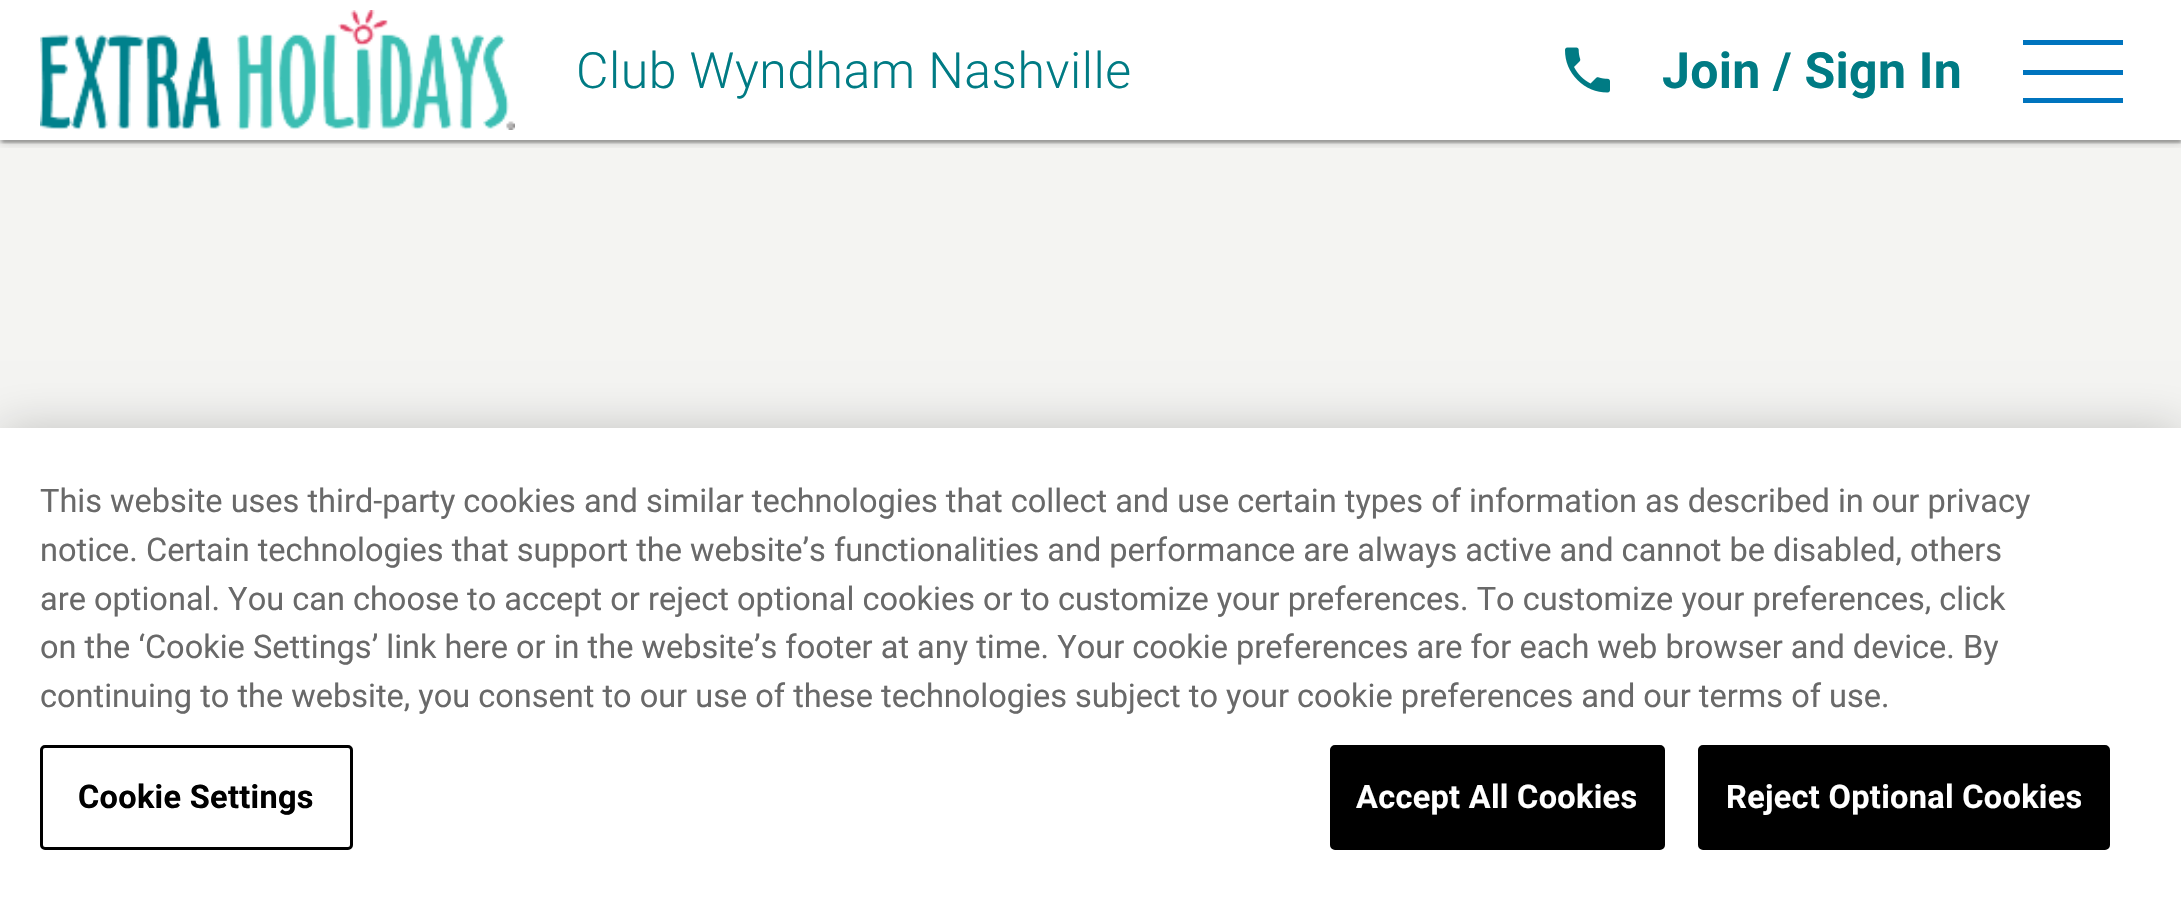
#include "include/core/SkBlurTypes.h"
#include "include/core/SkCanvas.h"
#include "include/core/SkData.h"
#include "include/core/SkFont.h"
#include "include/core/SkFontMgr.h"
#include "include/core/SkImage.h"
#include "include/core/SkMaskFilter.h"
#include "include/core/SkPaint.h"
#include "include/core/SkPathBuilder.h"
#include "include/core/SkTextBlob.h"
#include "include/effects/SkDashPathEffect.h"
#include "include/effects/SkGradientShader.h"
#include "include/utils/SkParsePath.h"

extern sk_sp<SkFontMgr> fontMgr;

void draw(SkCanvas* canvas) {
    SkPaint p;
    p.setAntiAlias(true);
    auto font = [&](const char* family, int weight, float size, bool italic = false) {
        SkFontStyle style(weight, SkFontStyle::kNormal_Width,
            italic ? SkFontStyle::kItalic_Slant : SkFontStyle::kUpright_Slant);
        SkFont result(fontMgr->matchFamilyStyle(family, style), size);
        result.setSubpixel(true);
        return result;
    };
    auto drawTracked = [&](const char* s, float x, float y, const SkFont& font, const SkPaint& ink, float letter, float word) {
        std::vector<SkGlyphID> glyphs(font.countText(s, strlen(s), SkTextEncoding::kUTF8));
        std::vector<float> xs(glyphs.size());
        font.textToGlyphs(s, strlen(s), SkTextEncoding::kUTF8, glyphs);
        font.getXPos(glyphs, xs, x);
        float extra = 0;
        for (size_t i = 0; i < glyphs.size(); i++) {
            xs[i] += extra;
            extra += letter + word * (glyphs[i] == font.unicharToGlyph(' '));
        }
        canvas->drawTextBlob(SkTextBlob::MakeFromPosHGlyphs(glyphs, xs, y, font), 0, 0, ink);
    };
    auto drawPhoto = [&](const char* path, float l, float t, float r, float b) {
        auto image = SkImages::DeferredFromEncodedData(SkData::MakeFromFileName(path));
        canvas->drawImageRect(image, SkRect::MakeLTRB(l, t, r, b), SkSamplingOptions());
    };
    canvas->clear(0xFFFFFFFF);
    p.setColor(0xFFF4F4F2);
    canvas->drawRect(SkRect::MakeLTRB(0, 140, 2181, 428), p);
    canvas->save();
    canvas->clipRect(SkRect::MakeLTRB(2, 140, 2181, 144));
    p.setColor(0x1F000000);
    p.setMaskFilter(SkMaskFilter::MakeBlur(kNormal_SkBlurStyle, 1));
    canvas->drawRect(SkRect::MakeLTRB(3, 8, 2180, 143), p);
    p.setMaskFilter(nullptr);
    canvas->restore();
    canvas->save();
    canvas->clipRect(SkRect::MakeLTRB(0, 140, 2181, 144));
    p.setColor(0x24000000);
    p.setMaskFilter(SkMaskFilter::MakeBlur(kNormal_SkBlurStyle, 1));
    canvas->drawRect(SkRect::MakeLTRB(0, 3, 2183, 143), p);
    p.setMaskFilter(nullptr);
    canvas->restore();
    canvas->save();
    canvas->clipRect(SkRect::MakeLTRB(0, 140, 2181, 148));
    p.setColor(0x33000000);
    p.setMaskFilter(SkMaskFilter::MakeBlur(kNormal_SkBlurStyle, 4));
    canvas->drawRect(SkRect::MakeLTRB(0, 3, 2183, 143), p);
    p.setMaskFilter(nullptr);
    canvas->restore();
    drawPhoto("media/1.png", 40, 10, 515, 130);
    auto font1 = font("Roboto", 300, 50);
    p.setColor(0xFF007B84);
    drawTracked("Club Wyndham Nashville", 576, 88, font1, p, 0.5f, 0);
    drawPhoto("media/2.png", 1565, 47, 1610, 93);
    auto font2 = font("Roboto", 700, 50);
    drawTracked("Join / Sign In", 1662, 88, font2, p, 0.25f, 0);
    {
        const struct { float l, t, r, b; SkColor color; } items[] = {
            {2023, 40, 2123, 45, 0xFF0074BE},
            {2023, 70, 2123, 75, 0xFF0074BE},
            {2023, 98, 2123, 103, 0xFF0074BE},
        };
        for (auto [l, t, r, b, color] : items) {
            p.setColor(color);
            canvas->drawRect(SkRect::MakeLTRB(l, t, r, b), p);
        }
    }
    p.setColor(0x33000000);
    p.setMaskFilter(SkMaskFilter::MakeBlur(kNormal_SkBlurStyle, 22.5f));
    canvas->drawRect(SkRect::MakeLTRB(0, 428, 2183, 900), p);
    p.setMaskFilter(nullptr);
    p.setColor(0xFFFFFFFF);
    canvas->drawRect(SkRect::MakeLTRB(0, 428, 2181, 898), p);
    auto font3 = font("Roboto", 400, 32.52f);
    p.setColor(0xFF696969);
    {
        const struct { const char* s; float x, y; } items[] = {
            {"This website uses third-party cookies and similar technologies that collect and use certain types of information as described in our privacy", 40, 512},
            {"notice. Certain technologies that support the website’s functionalities and performance are always active and cannot be disabled, others", 40, 561},
            {"are optional. You can choose to accept or reject optional cookies or to customize your preferences. To customize your preferences, click", 40, 610},
            {"on the ‘Cookie Settings’ link here or in the website’s footer at any time. Your cookie preferences are for each web browser and device. By", 40, 658},
            {"continuing to the website, you consent to our use of these technologies subject to your cookie preferences and our terms of use.", 40, 707},
        };
        for (auto [s, x, y] : items) {
            canvas->drawString(s, x, y, font3, p);
        }
    }
    p.setStyle(SkPaint::kStroke_Style);
    p.setStrokeWidth(3);
    p.setColor(0xFF000000);
    canvas->drawRoundRect(SkRect::MakeLTRB(41.5f, 746.5f, 351.5f, 848.5f), 3.5f, 3.5f, p);
    auto font4 = font("Roboto", 700, 32.52f);
    p.setStyle(SkPaint::kFill_Style);
    drawTracked("Cookie Settings", 78, 808, font4, p, 0.3f, 0);
    canvas->drawRoundRect(SkRect::MakeLTRB(1331.5f, 746.5f, 1663.5f, 848.5f), 3.5f, 3.5f, p);
    p.setStyle(SkPaint::kStroke_Style);
    canvas->drawRoundRect(SkRect::MakeLTRB(1331.5f, 746.5f, 1663.5f, 848.5f), 3.5f, 3.5f, p);
    p.setStyle(SkPaint::kFill_Style);
    p.setColor(0xFFFFFFFF);
    drawTracked("Accept All Cookies", 1356, 808, font4, p, 0.3f, 0);
    p.setColor(0xFF000000);
    canvas->drawRoundRect(SkRect::MakeLTRB(1699.5f, 746.5f, 2108.5f, 848.5f), 3.5f, 3.5f, p);
    p.setStyle(SkPaint::kStroke_Style);
    canvas->drawRoundRect(SkRect::MakeLTRB(1699.5f, 746.5f, 2108.5f, 848.5f), 3.5f, 3.5f, p);
    p.setStyle(SkPaint::kFill_Style);
    p.setColor(0xFFFFFFFF);
    drawTracked("Reject Optional Cookies", 1726, 808, font4, p, 0.3f, 0);
}
